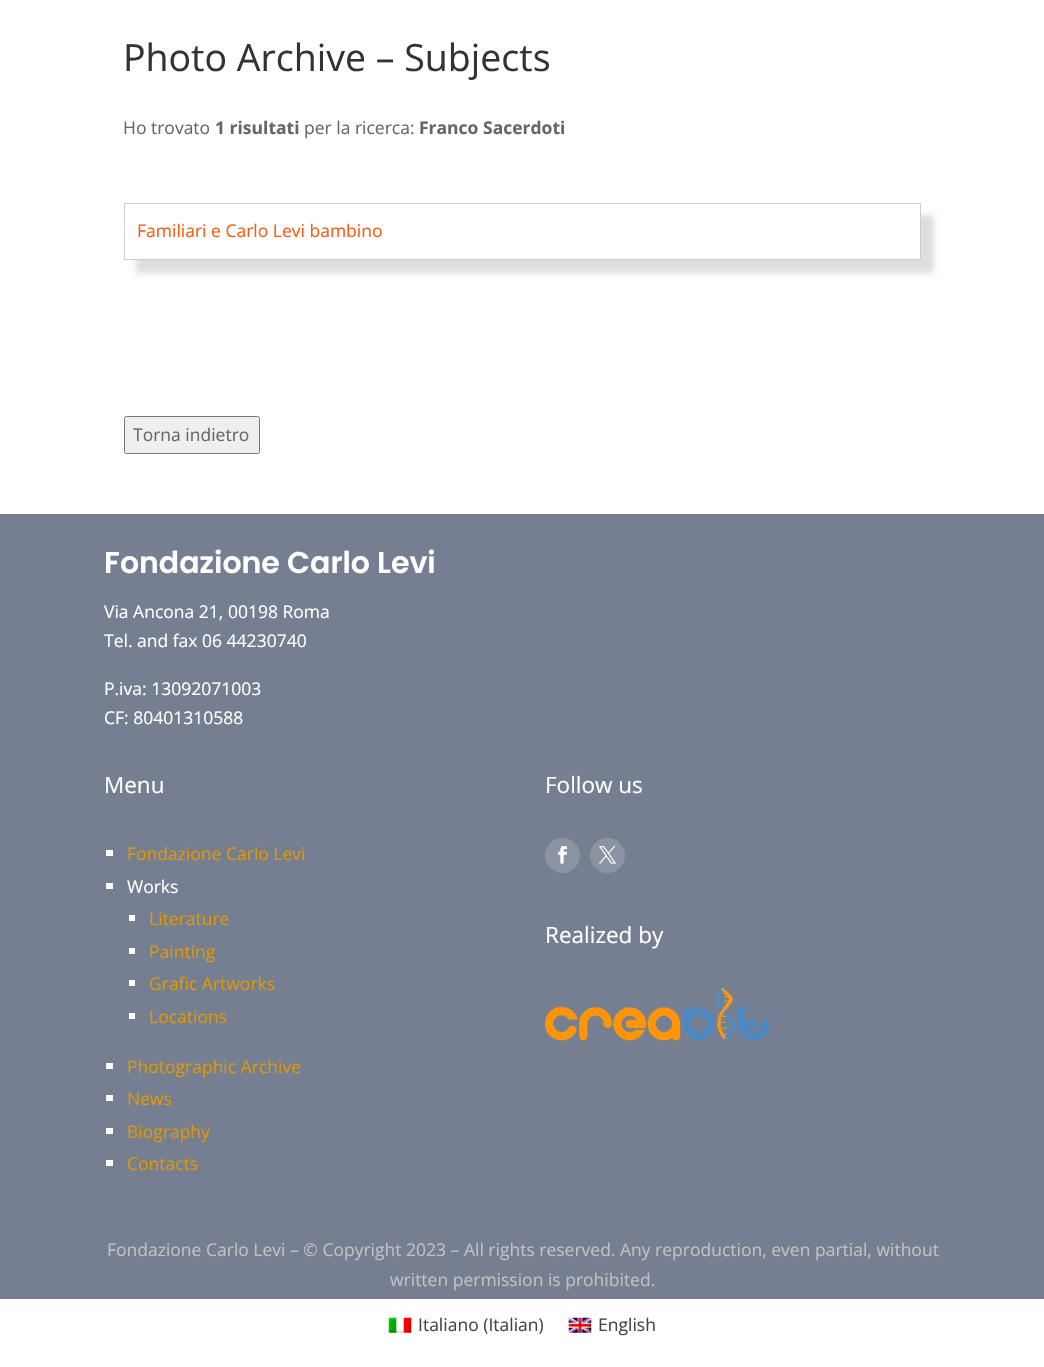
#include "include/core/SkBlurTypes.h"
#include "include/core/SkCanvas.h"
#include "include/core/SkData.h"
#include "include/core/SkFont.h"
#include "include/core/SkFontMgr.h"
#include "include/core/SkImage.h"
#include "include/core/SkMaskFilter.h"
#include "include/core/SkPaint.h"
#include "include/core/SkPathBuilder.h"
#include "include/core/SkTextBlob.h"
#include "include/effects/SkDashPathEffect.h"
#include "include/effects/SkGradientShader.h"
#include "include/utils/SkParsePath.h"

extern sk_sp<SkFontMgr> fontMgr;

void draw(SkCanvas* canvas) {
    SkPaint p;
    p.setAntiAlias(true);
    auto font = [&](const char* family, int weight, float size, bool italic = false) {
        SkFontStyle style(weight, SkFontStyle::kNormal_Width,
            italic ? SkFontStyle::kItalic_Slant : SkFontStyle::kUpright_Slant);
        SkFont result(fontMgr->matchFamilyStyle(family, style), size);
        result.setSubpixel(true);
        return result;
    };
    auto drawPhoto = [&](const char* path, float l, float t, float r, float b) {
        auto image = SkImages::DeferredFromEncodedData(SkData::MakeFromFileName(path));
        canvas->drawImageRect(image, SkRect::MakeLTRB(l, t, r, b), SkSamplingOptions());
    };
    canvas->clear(0xFFFFFFFF);
    auto font1 = font("Open Sans", 400, 37.5f);
    p.setColor(0xFF333333);
    canvas->drawString("Photo Archive – Subjects", 123, 71, font1, p);
    auto font2 = font("Open Sans", 400, 17.5f);
    p.setColor(0xFF666666);
    canvas->drawString("Ho trovato", 123, 134, font2, p);
    auto font3 = font("Open Sans", 700, 17.5f);
    canvas->drawString("1 risultati", 215, 134, font3, p);
    canvas->drawString("per la ricerca:", 304, 134, font2, p);
    canvas->drawString("Franco Sacerdoti", 419, 134, font3, p);
    canvas->save();
    canvas->clipPath(SkPathBuilder(SkPathFillType::kEvenOdd).moveTo(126, 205).lineTo(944, 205).lineTo(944, 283).lineTo(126, 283).close().moveTo(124, 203).lineTo(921, 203).lineTo(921, 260).lineTo(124, 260).close().detach(), true);
    p.setColor(0xFFDEDEDE);
    p.setMaskFilter(SkMaskFilter::MakeBlur(kNormal_SkBlurStyle, 3));
    canvas->drawRect(SkRect::MakeLTRB(136, 215, 934, 273), p);
    p.setMaskFilter(nullptr);
    canvas->restore();
    p.setStyle(SkPaint::kStroke_Style);
    p.setStrokeWidth(1);
    p.setColor(0xFFCCCCCC);
    canvas->drawRect(SkRect::MakeLTRB(124.5f, 203.5f, 920.5f, 259.5f), p);
    p.setStyle(SkPaint::kFill_Style);
    p.setColor(0xFFFF5910);
    canvas->drawString("Familiari e Carlo Levi bambino", 137, 237, font2, p);
    p.setColor(0xFFEFEFEF);
    canvas->drawRoundRect(SkRect::MakeLTRB(124.5f, 416.5f, 259.5f, 453.5f), 2, 2, p);
    p.setStyle(SkPaint::kStroke_Style);
    p.setColor(0xFF767676);
    canvas->drawRoundRect(SkRect::MakeLTRB(124.5f, 416.5f, 259.5f, 453.5f), 2, 2, p);
    p.setStyle(SkPaint::kFill_Style);
    p.setColor(0xFF666666);
    canvas->drawString("Torna indietro", 133, 441, font2, p);
    p.setColor(0xFF767F91);
    canvas->drawRect(SkRect::MakeLTRB(0, 514, 1044, 1299), p);
    auto font4 = font("Poppins", 600, 30);
    p.setColor(0xFFFFFFFF);
    canvas->drawString("Fondazione Carlo Levi", 104, 573, font4, p);
    {
        const struct { const char* s; float x, y; } items[] = {
            {"Via Ancona 21, 00198 Roma", 104, 618},
            {"Tel. and fax 06 44230740", 104, 647},
            {"P.iva: 13092071003", 104, 695},
            {"CF: 80401310588", 104, 724},
        };
        for (auto [s, x, y] : items) {
            canvas->drawString(s, x, y, font2, p);
        }
    }
    auto font5 = font("Open Sans", 400, 22.5f);
    canvas->drawString("Menu", 104, 793, font5, p);
    canvas->drawRect(SkRect::MakeLTRB(106, 850, 113, 856), p);
    p.setColor(0xFFE09900);
    canvas->drawString("Fondazione Carlo Levi", 127, 860, font2, p);
    p.setColor(0xFFFFFFFF);
    canvas->drawRect(SkRect::MakeLTRB(106, 883, 113, 889), p);
    canvas->drawString("Works", 127, 893, font2, p);
    canvas->drawRect(SkRect::MakeLTRB(129, 915, 135, 921), p);
    p.setColor(0xFFE09900);
    canvas->drawString("Literature", 149, 925, font2, p);
    p.setColor(0xFFFFFFFF);
    canvas->drawRect(SkRect::MakeLTRB(129, 948, 135, 954), p);
    p.setColor(0xFFE09900);
    canvas->drawString("Painting", 149, 958, font2, p);
    p.setColor(0xFFFFFFFF);
    canvas->drawRect(SkRect::MakeLTRB(129, 980, 135, 986), p);
    p.setColor(0xFFE09900);
    canvas->drawString("Grafic Artworks", 149, 990, font2, p);
    p.setColor(0xFFFFFFFF);
    canvas->drawRect(SkRect::MakeLTRB(129, 1013, 135, 1019), p);
    p.setColor(0xFFE09900);
    canvas->drawString("Locations", 149, 1023, font2, p);
    p.setColor(0xFFFFFFFF);
    canvas->drawRect(SkRect::MakeLTRB(106, 1063, 113, 1069), p);
    p.setColor(0xFFE09900);
    canvas->drawString("Photographic Archive", 127, 1073, font2, p);
    p.setColor(0xFFFFFFFF);
    canvas->drawRect(SkRect::MakeLTRB(106, 1095, 113, 1101), p);
    p.setColor(0xFFE09900);
    canvas->drawString("News", 127, 1105, font2, p);
    p.setColor(0xFFFFFFFF);
    canvas->drawRect(SkRect::MakeLTRB(106, 1128, 113, 1134), p);
    p.setColor(0xFFE09900);
    canvas->drawString("Biography", 127, 1138, font2, p);
    p.setColor(0xFFFFFFFF);
    canvas->drawRect(SkRect::MakeLTRB(106, 1160, 113, 1166), p);
    p.setColor(0xFFE09900);
    canvas->drawString("Contacts", 127, 1170, font2, p);
    p.setColor(0xFFFFFFFF);
    canvas->drawString("Follow us", 545, 793, font5, p);
    p.setColor(0xFF8C93A3);
    canvas->drawCircle(562.5f, 855.5f, 17.5f, p);
    drawPhoto("media/1.png", 558, 846, 567, 864);
    canvas->drawCircle(607.5f, 855.5f, 17.5f, p);
    drawPhoto("media/2.png", 599, 846, 616, 864);
    p.setColor(0xFFFFFFFF);
    canvas->drawString("Realized by", 545, 943, font5, p);
    drawPhoto("media/3.png", 545, 987, 770, 1042);
    p.setColor(0xFFC1C1C1);
    canvas->drawString("Fondazione Carlo Levi – © Copyright 2023 – All rights reserved. Any reproduction, even partial, without", 107, 1256, font2, p);
    canvas->drawString("written permission is prohibited.", 390, 1286, font2, p);
    drawPhoto("media/4.png", 388, 1317, 412, 1333);
    p.setColor(0xFF444444);
    canvas->drawString("Italiano (Italian)", 418, 1331, font2, p);
    drawPhoto("media/5.png", 568, 1317, 592, 1333);
    canvas->drawString("English", 598, 1331, font2, p);
}
